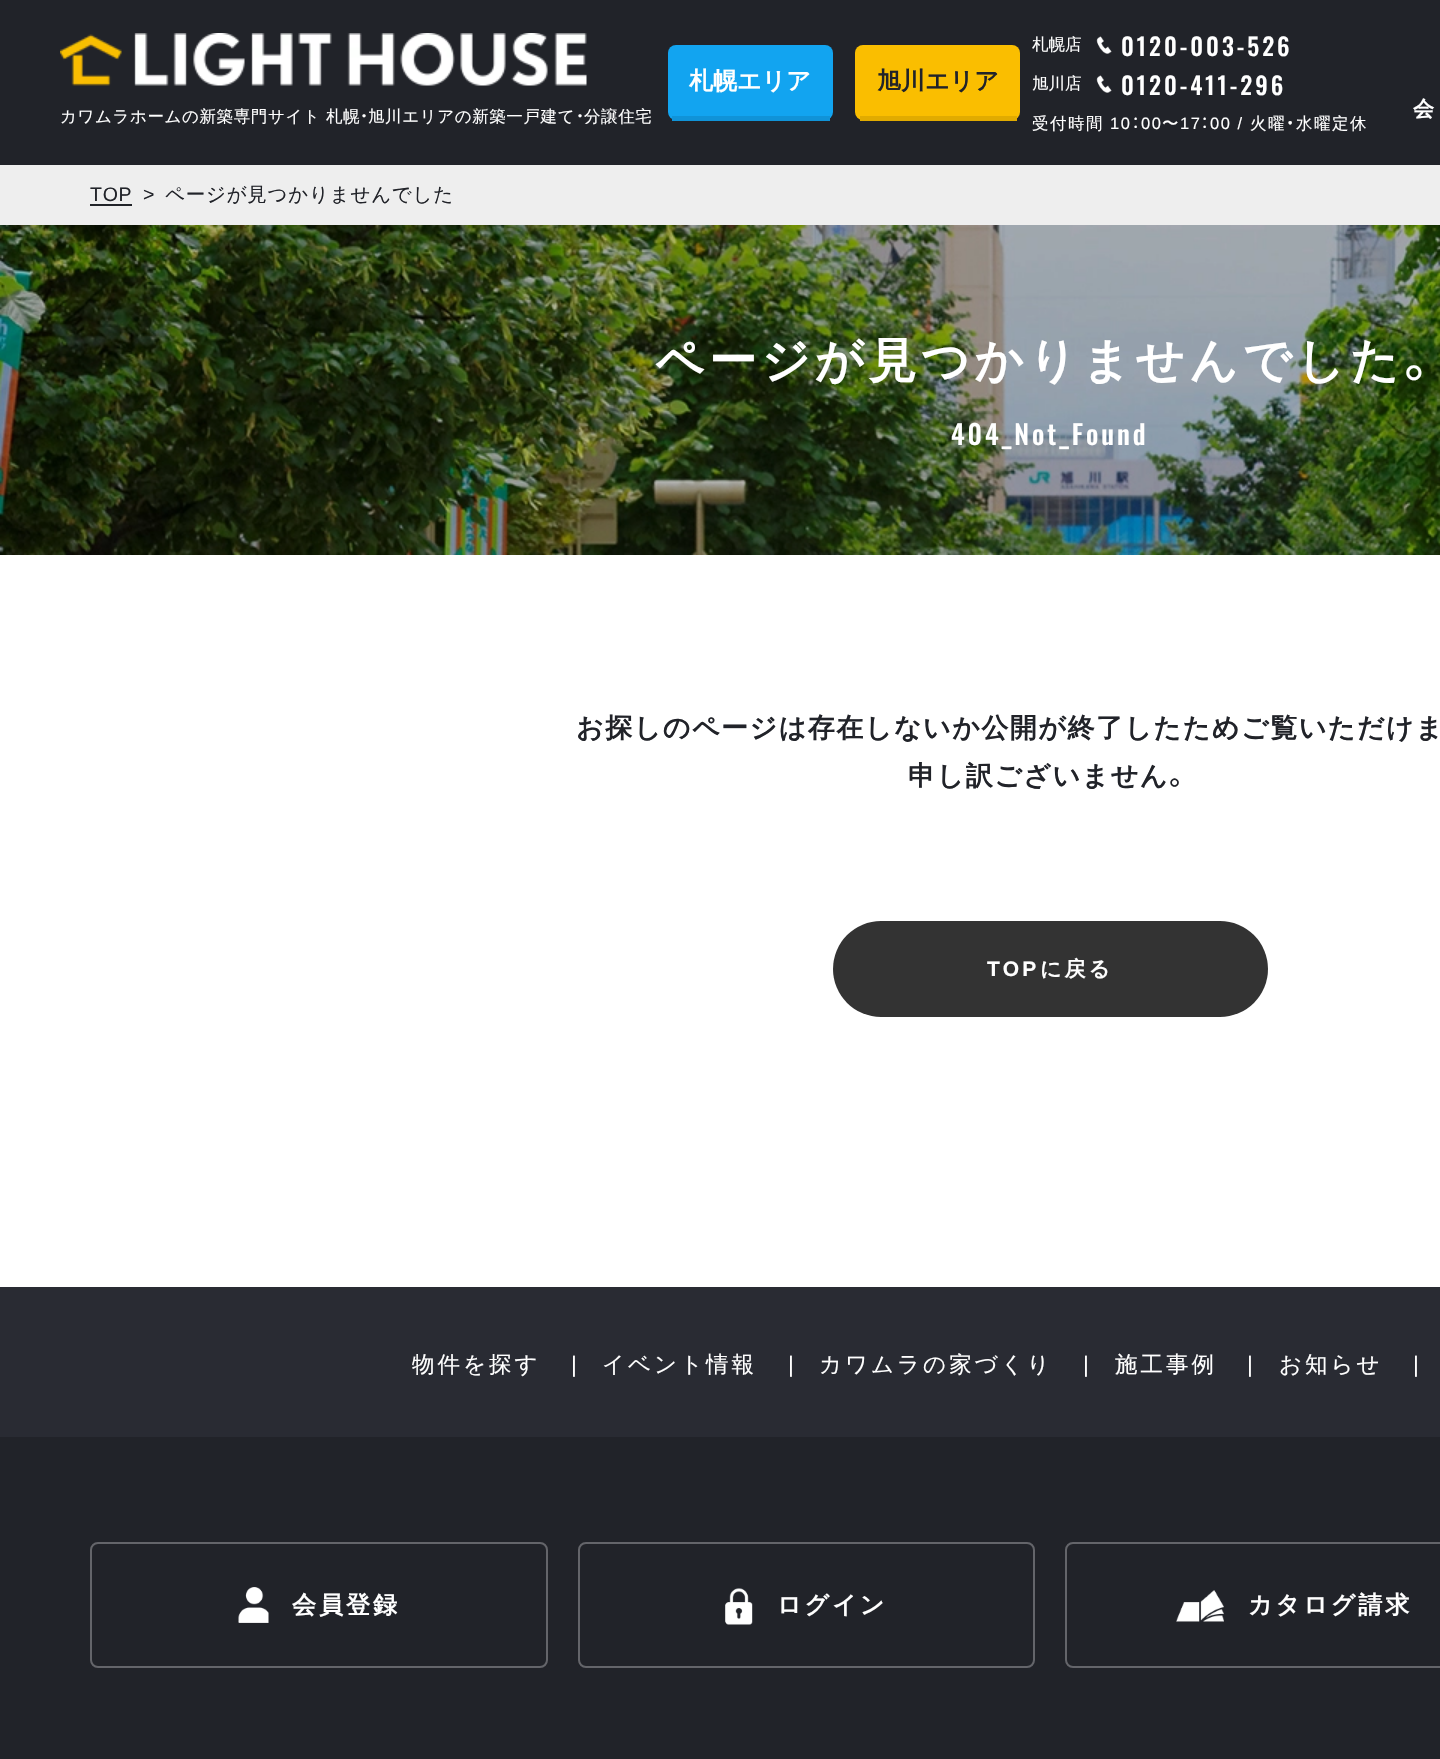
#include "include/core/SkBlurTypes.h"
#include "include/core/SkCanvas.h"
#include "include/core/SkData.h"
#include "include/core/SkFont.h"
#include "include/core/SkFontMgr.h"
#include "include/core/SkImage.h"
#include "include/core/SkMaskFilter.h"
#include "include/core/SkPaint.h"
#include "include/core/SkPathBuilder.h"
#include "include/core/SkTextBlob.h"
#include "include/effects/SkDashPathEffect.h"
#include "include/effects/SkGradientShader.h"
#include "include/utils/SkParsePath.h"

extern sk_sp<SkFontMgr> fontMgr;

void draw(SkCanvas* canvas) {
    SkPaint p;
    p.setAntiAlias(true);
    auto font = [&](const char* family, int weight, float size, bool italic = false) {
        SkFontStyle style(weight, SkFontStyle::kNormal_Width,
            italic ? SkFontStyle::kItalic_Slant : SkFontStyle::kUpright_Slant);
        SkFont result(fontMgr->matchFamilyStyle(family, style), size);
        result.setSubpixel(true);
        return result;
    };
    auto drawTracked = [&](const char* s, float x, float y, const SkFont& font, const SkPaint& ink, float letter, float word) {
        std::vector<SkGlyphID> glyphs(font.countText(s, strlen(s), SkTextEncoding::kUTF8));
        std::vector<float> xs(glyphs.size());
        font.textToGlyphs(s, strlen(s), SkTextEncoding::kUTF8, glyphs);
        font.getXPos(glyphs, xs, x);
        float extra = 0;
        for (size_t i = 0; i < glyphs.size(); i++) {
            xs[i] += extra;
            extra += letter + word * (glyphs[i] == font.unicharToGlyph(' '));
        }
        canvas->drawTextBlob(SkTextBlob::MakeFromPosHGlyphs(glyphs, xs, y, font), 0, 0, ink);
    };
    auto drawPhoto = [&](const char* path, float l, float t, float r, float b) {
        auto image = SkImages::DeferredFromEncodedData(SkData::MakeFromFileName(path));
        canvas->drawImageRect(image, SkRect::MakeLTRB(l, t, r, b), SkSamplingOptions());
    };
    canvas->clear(0xFFFFFFFF);
    p.setColor(0xFF212329);
    canvas->drawRect(SkRect::MakeLTRB(0, 0, 1440, 165), p);
    p.setColor(0xFF12A4F0);
    canvas->drawRoundRect(SkRect::MakeLTRB(668, 45, 833, 120), 8, 8, p);
    p.setColor(0xFF1093D8);
    canvas->drawRect(SkRect::MakeLTRB(672, 116, 830, 121), p);
    auto font1 = font("WenQuanYi Zen Hei", 700, 24);
    p.setColor(0xFFFFFFFF);
    canvas->drawString("札幌エリア", 689, 89, font1, p);
    p.setColor(0xFFFABE00);
    canvas->drawRoundRect(SkRect::MakeLTRB(855, 45, 1020, 120), 8, 8, p);
    p.setColor(0xFFE1AB00);
    canvas->drawRect(SkRect::MakeLTRB(860, 116, 1017, 121), p);
    p.setColor(0xFF212329);
    canvas->drawString("旭川エリア", 877, 89, font1, p);
    drawPhoto("media/1.png", 60, 33, 587, 86);
    auto font2 = font("WenQuanYi Zen Hei", 500, 16.5f);
    p.setColor(0xFFFFFFFF);
    drawTracked("カワムラホームの新築専門サイト 札幌", 60, 122, font2, p, 0.6f, 0);
    auto font3 = font("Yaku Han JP", 300, 16.5f);
    drawTracked("・", 360, 122, font3, p, 0.6f, 0);
    drawTracked("旭川エリアの新築一戸建て", 368, 122, font2, p, 0.6f, 0);
    drawTracked("・", 576, 122, font3, p, 0.6f, 0);
    drawTracked("分譲住宅", 584, 122, font2, p, 0.6f, 0);
    canvas->drawString("札幌店", 1032, 50, font2, p);
    drawPhoto("media/2.png", 1096, 36, 1112, 54);
    auto font4 = font("Oswald", 500, 24);
    drawTracked("0120-003-526", 1121, 56, font4, p, 3, 0);
    canvas->drawString("旭川店", 1032, 89, font2, p);
    drawPhoto("media/2.png", 1096, 75, 1112, 93);
    drawTracked("0120-411-296", 1121, 95, font4, p, 3, 0);
    drawTracked("受付時間", 1032, 129, font2, p, 1.5f, 0);
    auto font5 = font("Liberation Sans", 400, 16.5f);
    drawTracked("10", 1110, 129, font5, p, 1.5f, 0);
    auto font6 = font("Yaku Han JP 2", 300, 16.5f);
    drawTracked("：", 1132, 129, font6, p, 1.5f, 0);
    drawTracked("00", 1141, 129, font5, p, 1.5f, 0);
    drawTracked("〜", 1162, 129, font2, p, 1.5f, 0);
    drawTracked("17", 1180, 129, font5, p, 1.5f, 0);
    drawTracked("：", 1201, 129, font6, p, 1.5f, 0);
    drawTracked("00 /", 1210, 129, font5, p, 1.5f, 0);
    drawTracked("⽕曜", 1250, 129, font2, p, 1.5f, 0);
    drawTracked("・", 1286, 129, font6, p, 1.5f, 0);
    drawTracked("⽔曜定休", 1296, 129, font2, p, 1.5f, 0);
    auto font7 = font("WenQuanYi Zen Hei", 700, 21);
    drawTracked("会", 1413, 116, font7, p, 0.75f, 0);
    p.setColor(0xFFEEEEEE);
    canvas->drawRect(SkRect::MakeLTRB(0, 165, 1440, 225), p);
    auto font8 = font("Liberation Sans", 400, 19.5f);
    p.setColor(0xFF212329);
    drawTracked("TOP", 90, 201, font8, p, 0.75f, 0);
    canvas->drawRect(SkRect::MakeLTRB(90, 204, 132, 206), p);
    drawTracked(">", 143, 201, font8, p, 0.75f, 0);
    auto font9 = font("WenQuanYi Zen Hei", 500, 19.5f);
    drawTracked("ページが見つかりませんでした", 165, 201, font9, p, 0.75f, 0);
    drawPhoto("media/3.png", 0, 225, 1440, 555);
    auto font10 = font("WenQuanYi Zen Hei", 700, 48);
    p.setColor(0xFFFFFFFF);
    drawTracked("ページが見つかりませんでした", 655, 377, font10, p, 4.5f, 0);
    auto font11 = font("Yaku Han JP", 500, 48);
    drawTracked("。", 1404, 377, font11, p, 4.5f, 0);
    auto font12 = font("Oswald", 500, 27);
    drawTracked("404_Not_Found", 951, 445, font12, p, 3, 0);
    auto font13 = font("WenQuanYi Zen Hei", 700, 27);
    p.setColor(0xFF212329);
    drawTracked("お探しのページは存在しないか公開が終了したためご覧いただけま", 576, 737, font13, p, 1.5f, 0);
    drawTracked("申し訳ございません", 908, 785, font13, p, 1.5f, 0);
    auto font14 = font("Yaku Han JP", 500, 27);
    drawTracked("。", 1169, 785, font14, p, 1.5f, 0);
    p.setColor(0xFF333333);
    canvas->drawRoundRect(SkRect::MakeLTRB(833, 921, 1268, 1017), 48, 48, p);
    auto font15 = font("Liberation Sans", 700, 21);
    p.setColor(0xFFFFFFFF);
    drawTracked("TOP", 987, 976, font15, p, 3, 0);
    drawTracked("に戻る", 1040, 976, font7, p, 3, 0);
    p.setColor(0xFF292B33);
    canvas->drawRect(SkRect::MakeLTRB(0, 1287, 1440, 1437), p);
    auto font16 = font("WenQuanYi Zen Hei", 500, 22.5f);
    p.setColor(0xFFFFFFFF);
    drawTracked("物件を探す", 412, 1372, font16, p, 3, 0);
    auto font17 = font("Liberation Sans", 400, 22.5f);
    canvas->drawString("|", 571, 1372, font17, p);
    drawTracked("イベント情報", 602, 1372, font16, p, 3, 0);
    canvas->drawString("|", 788, 1372, font17, p);
    drawTracked("カワムラの家づくり", 819, 1372, font16, p, 3, 0);
    canvas->drawString("|", 1083, 1372, font17, p);
    drawTracked("施工事例", 1115, 1372, font16, p, 3, 0);
    canvas->drawString("|", 1247, 1372, font17, p);
    drawTracked("お知らせ", 1279, 1372, font16, p, 3, 0);
    canvas->drawString("|", 1413, 1372, font17, p);
    p.setColor(0xFF212329);
    canvas->drawRect(SkRect::MakeLTRB(0, 1437, 1440, 1759), p);
    p.setStyle(SkPaint::kStroke_Style);
    p.setStrokeWidth(2);
    p.setColor(0xFF64656A);
    canvas->drawRoundRect(SkRect::MakeLTRB(91, 1543, 547, 1667), 7, 7, p);
    drawPhoto("media/4.png", 238, 1587, 269, 1623);
    p.setStyle(SkPaint::kFill_Style);
    p.setColor(0xFFFFFFFF);
    drawTracked("会員登録", 292, 1613, font1, p, 3, 0);
    p.setStyle(SkPaint::kStroke_Style);
    p.setColor(0xFF64656A);
    canvas->drawRoundRect(SkRect::MakeLTRB(579, 1543, 1034, 1667), 7, 7, p);
    drawPhoto("media/5.png", 725, 1588, 753, 1625);
    p.setStyle(SkPaint::kFill_Style);
    p.setColor(0xFFFFFFFF);
    drawTracked("ログイン", 777, 1613, font1, p, 3, 0);
    p.setStyle(SkPaint::kStroke_Style);
    p.setColor(0xFF64656A);
    canvas->drawRoundRect(SkRect::MakeLTRB(1066, 1543, 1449, 1667), 7, 7, p);
    drawPhoto("media/6.png", 1176, 1590, 1224, 1622);
    p.setStyle(SkPaint::kFill_Style);
    p.setColor(0xFFFFFFFF);
    drawTracked("カタログ請求", 1248, 1613, font1, p, 3, 0);
}
